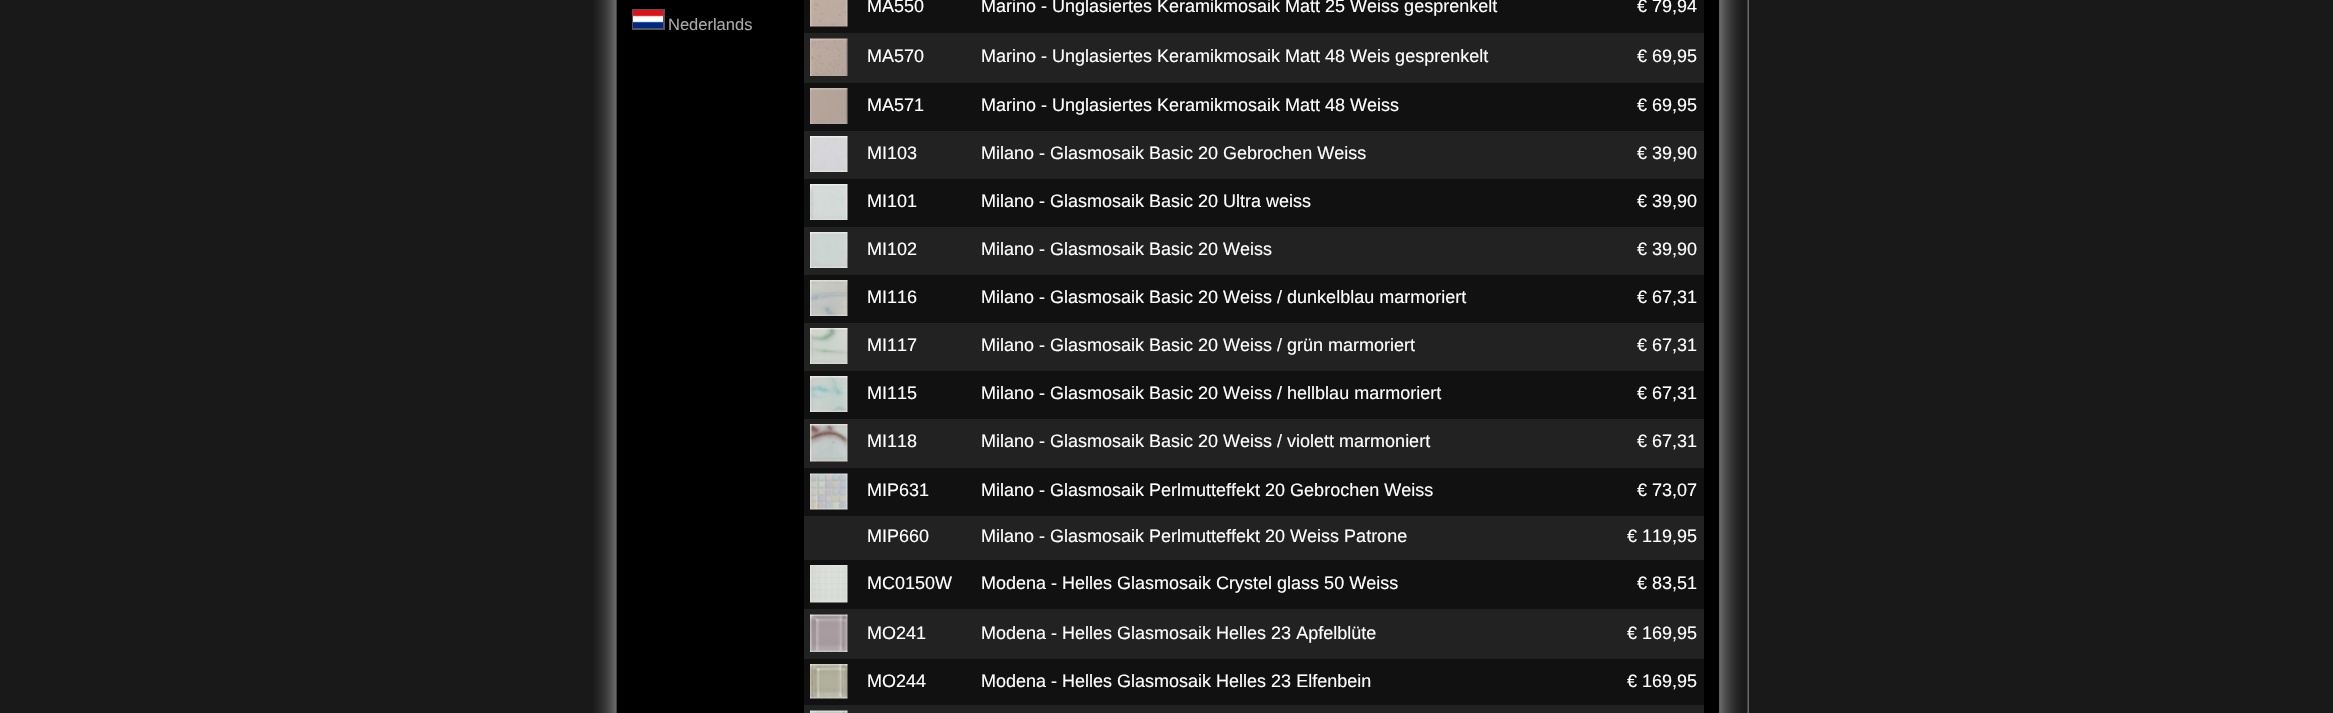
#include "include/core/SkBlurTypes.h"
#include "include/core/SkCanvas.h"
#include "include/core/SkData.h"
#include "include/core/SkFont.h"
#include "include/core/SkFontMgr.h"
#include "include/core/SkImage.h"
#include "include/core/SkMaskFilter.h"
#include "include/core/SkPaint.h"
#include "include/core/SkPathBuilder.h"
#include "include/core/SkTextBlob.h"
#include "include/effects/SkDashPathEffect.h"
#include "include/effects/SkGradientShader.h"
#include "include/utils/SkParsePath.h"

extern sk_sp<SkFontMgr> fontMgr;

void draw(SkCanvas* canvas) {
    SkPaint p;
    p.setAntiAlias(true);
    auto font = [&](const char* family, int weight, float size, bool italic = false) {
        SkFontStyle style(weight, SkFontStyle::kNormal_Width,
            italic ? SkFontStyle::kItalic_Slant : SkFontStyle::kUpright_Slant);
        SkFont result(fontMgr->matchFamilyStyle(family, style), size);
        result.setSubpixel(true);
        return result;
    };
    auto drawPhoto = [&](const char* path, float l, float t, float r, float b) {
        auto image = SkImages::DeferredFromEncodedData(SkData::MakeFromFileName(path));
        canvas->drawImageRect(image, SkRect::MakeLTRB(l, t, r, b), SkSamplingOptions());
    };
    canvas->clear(0xFF191919);
    drawPhoto("media/1.png", 594, 0, 617, 713);
    p.setColor(0xFF000000);
    canvas->drawRect(SkRect::MakeLTRB(617, 0, 1719, 713), p);
    p.setStyle(SkPaint::kStroke_Style);
    p.setStrokeWidth(2);
    p.setColor(0xFF555555);
    canvas->drawRect(SkRect::MakeLTRB(633, 10, 664, 29), p);
    drawPhoto("media/2.png", 633, 10, 663, 28);
    auto font1 = font("Liberation Sans", 400, 16.5f);
    p.setStyle(SkPaint::kFill_Style);
    p.setColor(0xFFAAAAAA);
    canvas->drawString("Nederlands", 668, 30, font1, p);
    p.setColor(0xFF111111);
    canvas->drawRect(SkRect::MakeLTRB(804, 0, 1704, 33), p);
    drawPhoto("media/3.png", 810, 0, 848, 27);
    auto font2 = font("Liberation Sans", 400, 18);
    p.setColor(0xFFFFFFFF);
    {
        const struct { const char* s; float x, y; } items[] = {
            {"MA550", 867, 12},
            {"Marino - Unglasiertes Keramikmosaik Matt 25 Weiss gesprenkelt", 981, 12},
            {"€ 79,94", 1637, 12},
        };
        for (auto [s, x, y] : items) {
            canvas->drawString(s, x, y, font2, p);
        }
    }
    p.setColor(0xFF222222);
    canvas->drawRect(SkRect::MakeLTRB(804, 33, 1704, 83), p);
    drawPhoto("media/4.png", 810, 38, 848, 76);
    p.setColor(0xFFFFFFFF);
    {
        const struct { const char* s; float x, y; } items[] = {
            {"MA570", 867, 62},
            {"Marino - Unglasiertes Keramikmosaik Matt 48 Weis gesprenkelt", 981, 62},
            {"€ 69,95", 1637, 62},
        };
        for (auto [s, x, y] : items) {
            canvas->drawString(s, x, y, font2, p);
        }
    }
    p.setColor(0xFF111111);
    canvas->drawRect(SkRect::MakeLTRB(804, 83, 1704, 131), p);
    drawPhoto("media/5.png", 810, 88, 848, 124);
    p.setColor(0xFFFFFFFF);
    {
        const struct { const char* s; float x, y; } items[] = {
            {"MA571", 867, 111},
            {"Marino - Unglasiertes Keramikmosaik Matt 48 Weiss", 981, 111},
            {"€ 69,95", 1637, 111},
        };
        for (auto [s, x, y] : items) {
            canvas->drawString(s, x, y, font2, p);
        }
    }
    p.setColor(0xFF222222);
    canvas->drawRect(SkRect::MakeLTRB(804, 131, 1704, 179), p);
    drawPhoto("media/6.png", 810, 136, 848, 172);
    p.setColor(0xFFFFFFFF);
    {
        const struct { const char* s; float x, y; } items[] = {
            {"MI103", 867, 159},
            {"Milano - Glasmosaik Basic 20 Gebrochen Weiss", 981, 159},
            {"€ 39,90", 1637, 159},
        };
        for (auto [s, x, y] : items) {
            canvas->drawString(s, x, y, font2, p);
        }
    }
    p.setColor(0xFF111111);
    canvas->drawRect(SkRect::MakeLTRB(804, 179, 1704, 227), p);
    drawPhoto("media/7.png", 810, 184, 848, 220);
    p.setColor(0xFFFFFFFF);
    {
        const struct { const char* s; float x, y; } items[] = {
            {"MI101", 867, 207},
            {"Milano - Glasmosaik Basic 20 Ultra weiss", 981, 207},
            {"€ 39,90", 1637, 207},
        };
        for (auto [s, x, y] : items) {
            canvas->drawString(s, x, y, font2, p);
        }
    }
    p.setColor(0xFF222222);
    canvas->drawRect(SkRect::MakeLTRB(804, 227, 1704, 275), p);
    drawPhoto("media/8.png", 810, 232, 848, 268);
    p.setColor(0xFFFFFFFF);
    {
        const struct { const char* s; float x, y; } items[] = {
            {"MI102", 867, 255},
            {"Milano - Glasmosaik Basic 20 Weiss", 981, 255},
            {"€ 39,90", 1637, 255},
        };
        for (auto [s, x, y] : items) {
            canvas->drawString(s, x, y, font2, p);
        }
    }
    p.setColor(0xFF111111);
    canvas->drawRect(SkRect::MakeLTRB(804, 275, 1704, 323), p);
    drawPhoto("media/9.png", 810, 280, 848, 316);
    p.setColor(0xFFFFFFFF);
    {
        const struct { const char* s; float x, y; } items[] = {
            {"MI116", 867, 303},
            {"Milano - Glasmosaik Basic 20 Weiss / dunkelblau marmoriert", 981, 303},
            {"€ 67,31", 1637, 303},
        };
        for (auto [s, x, y] : items) {
            canvas->drawString(s, x, y, font2, p);
        }
    }
    p.setColor(0xFF222222);
    canvas->drawRect(SkRect::MakeLTRB(804, 323, 1704, 371), p);
    drawPhoto("media/10.png", 810, 328, 848, 364);
    p.setColor(0xFFFFFFFF);
    {
        const struct { const char* s; float x, y; } items[] = {
            {"MI117", 867, 351},
            {"Milano - Glasmosaik Basic 20 Weiss / grün marmoriert", 981, 351},
            {"€ 67,31", 1637, 351},
        };
        for (auto [s, x, y] : items) {
            canvas->drawString(s, x, y, font2, p);
        }
    }
    p.setColor(0xFF111111);
    canvas->drawRect(SkRect::MakeLTRB(804, 371, 1704, 419), p);
    drawPhoto("media/11.png", 810, 376, 848, 412);
    p.setColor(0xFFFFFFFF);
    {
        const struct { const char* s; float x, y; } items[] = {
            {"MI115", 867, 399},
            {"Milano - Glasmosaik Basic 20 Weiss / hellblau marmoriert", 981, 399},
            {"€ 67,31", 1637, 399},
        };
        for (auto [s, x, y] : items) {
            canvas->drawString(s, x, y, font2, p);
        }
    }
    p.setColor(0xFF222222);
    canvas->drawRect(SkRect::MakeLTRB(804, 419, 1704, 468), p);
    drawPhoto("media/12.png", 810, 424, 848, 462);
    p.setColor(0xFFFFFFFF);
    {
        const struct { const char* s; float x, y; } items[] = {
            {"MI118", 867, 447},
            {"Milano - Glasmosaik Basic 20 Weiss / violett marmoniert", 981, 447},
            {"€ 67,31", 1637, 447},
        };
        for (auto [s, x, y] : items) {
            canvas->drawString(s, x, y, font2, p);
        }
    }
    p.setColor(0xFF111111);
    canvas->drawRect(SkRect::MakeLTRB(804, 468, 1704, 516), p);
    drawPhoto("media/13.png", 810, 473, 848, 510);
    p.setColor(0xFFFFFFFF);
    {
        const struct { const char* s; float x, y; } items[] = {
            {"MIP631", 867, 496},
            {"Milano - Glasmosaik Perlmutteffekt 20 Gebrochen Weiss", 981, 496},
            {"€ 73,07", 1637, 496},
        };
        for (auto [s, x, y] : items) {
            canvas->drawString(s, x, y, font2, p);
        }
    }
    p.setColor(0xFF222222);
    canvas->drawRect(SkRect::MakeLTRB(804, 516, 1704, 560), p);
    p.setColor(0xFFFFFFFF);
    {
        const struct { const char* s; float x, y; } items[] = {
            {"MIP660", 867, 542},
            {"Milano - Glasmosaik Perlmutteffekt 20 Weiss Patrone", 981, 542},
            {"€ 119,95", 1627, 542},
        };
        for (auto [s, x, y] : items) {
            canvas->drawString(s, x, y, font2, p);
        }
    }
    p.setColor(0xFF111111);
    canvas->drawRect(SkRect::MakeLTRB(804, 560, 1704, 609), p);
    drawPhoto("media/14.png", 810, 565, 848, 603);
    p.setColor(0xFFFFFFFF);
    {
        const struct { const char* s; float x, y; } items[] = {
            {"MC0150W", 867, 589},
            {"Modena - Helles Glasmosaik Crystel glass 50 Weiss", 981, 589},
            {"€ 83,51", 1637, 589},
        };
        for (auto [s, x, y] : items) {
            canvas->drawString(s, x, y, font2, p);
        }
    }
    p.setColor(0xFF222222);
    canvas->drawRect(SkRect::MakeLTRB(804, 609, 1704, 659), p);
    drawPhoto("media/15.png", 810, 614, 848, 652);
    p.setColor(0xFFFFFFFF);
    {
        const struct { const char* s; float x, y; } items[] = {
            {"MO241", 867, 639},
            {"Modena - Helles Glasmosaik Helles 23 Apfelblüte", 981, 639},
            {"€ 169,95", 1627, 639},
        };
        for (auto [s, x, y] : items) {
            canvas->drawString(s, x, y, font2, p);
        }
    }
    p.setColor(0xFF111111);
    canvas->drawRect(SkRect::MakeLTRB(804, 659, 1704, 705), p);
    drawPhoto("media/16.png", 810, 664, 848, 699);
    p.setColor(0xFFFFFFFF);
    {
        const struct { const char* s; float x, y; } items[] = {
            {"MO244", 867, 687},
            {"Modena - Helles Glasmosaik Helles 23 Elfenbein", 981, 687},
            {"€ 169,95", 1627, 687},
        };
        for (auto [s, x, y] : items) {
            canvas->drawString(s, x, y, font2, p);
        }
    }
    p.setColor(0xFF222222);
    canvas->drawRect(SkRect::MakeLTRB(804, 705, 1704, 713), p);
    drawPhoto("media/17.png", 810, 710, 848, 713);
    drawPhoto("media/18.png", 1719, 0, 1749, 713);
}
